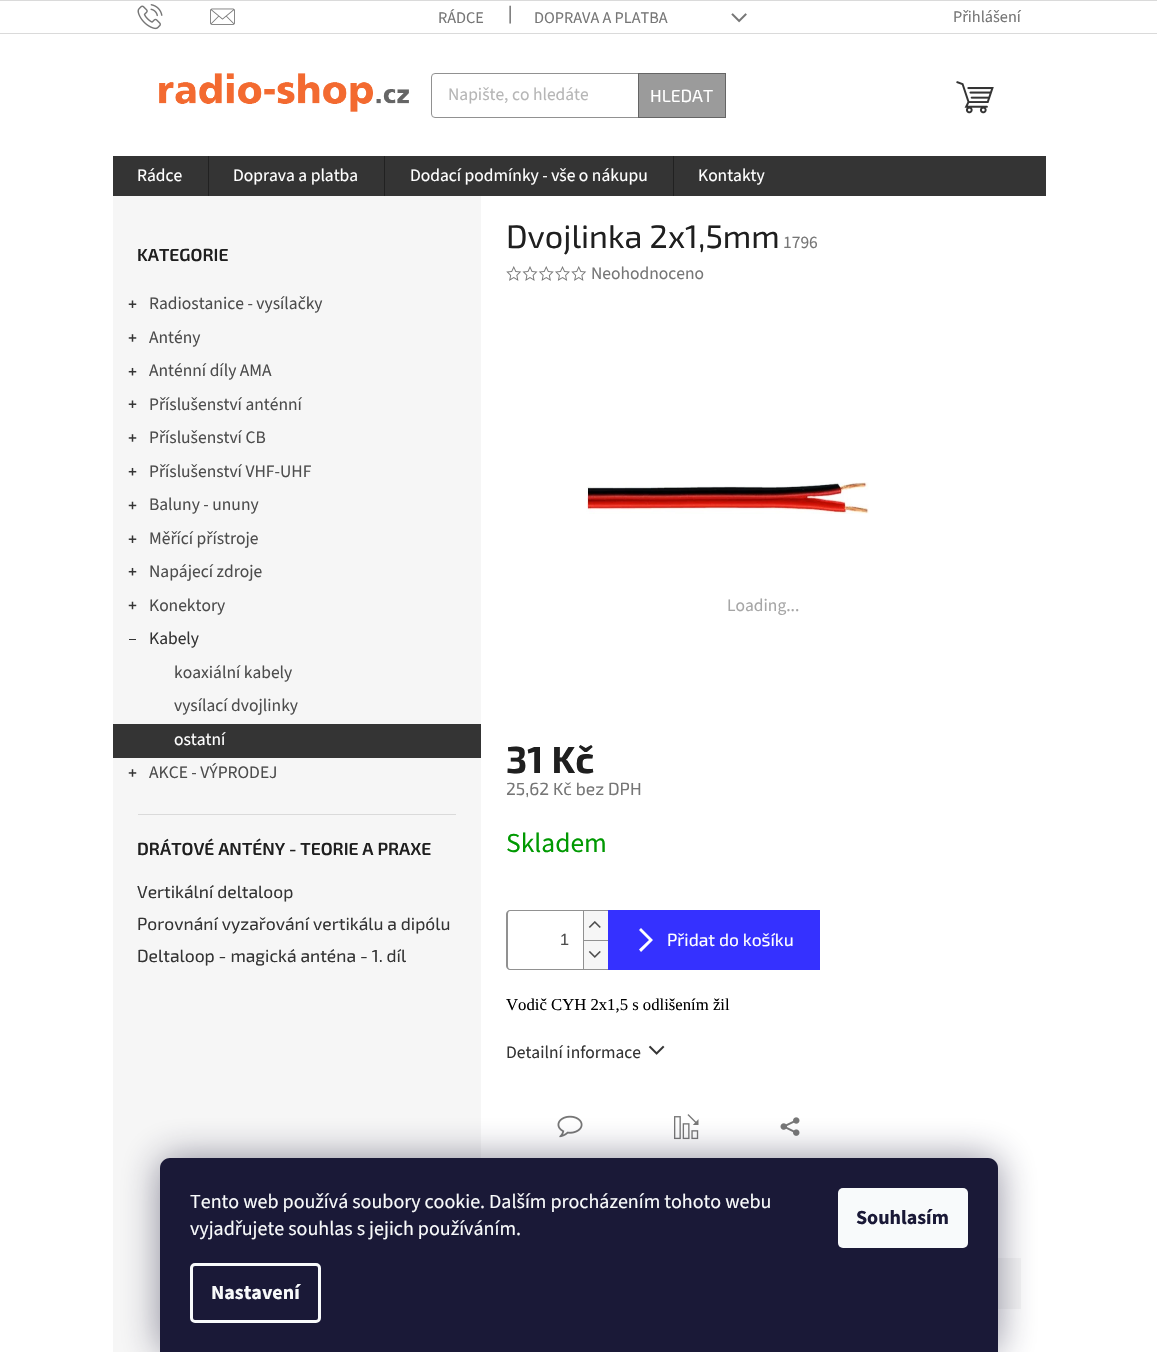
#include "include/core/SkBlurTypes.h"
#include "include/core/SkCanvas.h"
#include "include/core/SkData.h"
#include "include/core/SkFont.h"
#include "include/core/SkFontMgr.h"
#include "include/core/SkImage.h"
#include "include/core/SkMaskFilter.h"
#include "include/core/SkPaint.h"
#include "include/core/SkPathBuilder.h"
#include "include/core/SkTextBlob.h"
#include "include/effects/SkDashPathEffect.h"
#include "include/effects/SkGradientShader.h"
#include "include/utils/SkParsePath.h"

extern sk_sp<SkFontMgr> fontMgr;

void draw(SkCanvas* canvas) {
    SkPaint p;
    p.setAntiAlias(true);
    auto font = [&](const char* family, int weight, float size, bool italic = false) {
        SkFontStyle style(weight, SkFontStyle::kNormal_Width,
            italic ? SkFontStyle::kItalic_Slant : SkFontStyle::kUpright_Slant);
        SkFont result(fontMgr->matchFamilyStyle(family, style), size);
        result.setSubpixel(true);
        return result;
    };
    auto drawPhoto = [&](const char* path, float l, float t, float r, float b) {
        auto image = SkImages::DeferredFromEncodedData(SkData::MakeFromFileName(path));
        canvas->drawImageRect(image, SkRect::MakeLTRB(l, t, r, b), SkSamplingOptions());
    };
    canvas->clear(0xFFFFFFFF);
    p.setColor(0xFFDADADA);
    canvas->drawRect(SkRect::MakeLTRB(0, 0, 1157, 1), p);
    canvas->drawRect(SkRect::MakeLTRB(0, 33, 1157, 34), p);
    drawPhoto("media/1.png", 137, 4, 163, 30);
    drawPhoto("media/2.png", 210, 8, 235, 25);
    auto font1 = font("Source Sans 3", 400, 16.25f);
    p.setColor(0xFF767676);
    canvas->drawString("RÁDCE", 438, 23, font1, p);
    auto font2 = font("Source Sans 3", 400, 17.5f);
    p.setColor(0xFF4D4D4D);
    canvas->drawString("|", 508, 19, font2, p);
    p.setColor(0xFF767676);
    canvas->drawString("DOPRAVA A PLATBA", 534, 23, font1, p);
    drawPhoto("media/3.png", 731, 13, 747, 23);
    canvas->drawString("Přihlášení", 953, 22, font1, p);
    drawPhoto("media/4.png", 159, 73, 409, 112);
    p.setStyle(SkPaint::kStroke_Style);
    p.setStrokeWidth(1);
    p.setColor(0xFF919191);
    canvas->drawRoundRect(SkRect::MakeLTRB(431.5f, 73.5f, 725.5f, 117.5f), 3.5f, 3.5f, p);
    p.setStyle(SkPaint::kFill_Style);
    p.setColor(0xFFB6B6B6);
    canvas->drawString("Napište, co hledáte", 448, 100, font2, p);
    p.setColor(0xFF9B9B9B);
    canvas->drawRect(SkRect::MakeLTRB(638.5f, 73.5f, 725.5f, 117.5f), p);
    p.setStyle(SkPaint::kStroke_Style);
    p.setColor(0xFF656565);
    canvas->drawRect(SkRect::MakeLTRB(638.5f, 73.5f, 725.5f, 117.5f), p);
    auto font3 = font("Exo 2", 400, 17.5f);
    p.setStyle(SkPaint::kFill_Style);
    p.setColor(0xFFFFFFFF);
    canvas->drawString("HLEDAT", 650, 102, font3, p);
    drawPhoto("media/5.png", 956, 81, 994, 114);
    p.setColor(0xFF343434);
    canvas->drawRect(SkRect::MakeLTRB(113, 156, 1046, 196), p);
    p.setColor(0xFFFFFFFF);
    canvas->drawString("Rádce", 137, 181, font2, p);
    p.setColor(0xFF212121);
    canvas->drawRect(SkRect::MakeLTRB(208, 156, 209, 196), p);
    p.setColor(0xFFFFFFFF);
    canvas->drawString("Doprava a platba", 233, 181, font2, p);
    p.setColor(0xFF212121);
    canvas->drawRect(SkRect::MakeLTRB(384, 156, 385, 196), p);
    p.setColor(0xFFFFFFFF);
    canvas->drawString("Dodací podmínky - vše o nákupu", 410, 181, font2, p);
    p.setColor(0xFF212121);
    canvas->drawRect(SkRect::MakeLTRB(673, 156, 674, 196), p);
    p.setColor(0xFFFFFFFF);
    canvas->drawString("Kontakty", 698, 181, font2, p);
    p.setColor(0xFFF6F6F6);
    canvas->drawRect(SkRect::MakeLTRB(113, 196, 481, 1352), p);
    p.setColor(0xFFDADADA);
    canvas->drawRect(SkRect::MakeLTRB(138, 814, 456, 815), p);
    auto font4 = font("Exo 2", 600, 17.5f);
    p.setColor(0xFF1F1F1F);
    canvas->drawString("KATEGORIE", 137, 261, font4, p);
    drawPhoto("media/6.png", 128, 300, 137, 308);
    p.setColor(0xFF4D4D4D);
    canvas->drawString("Radiostanice - vysílačky", 149, 309, font2, p);
    drawPhoto("media/7.png", 128, 334, 137, 342);
    canvas->drawString("Antény", 149, 343, font2, p);
    drawPhoto("media/8.png", 128, 367, 137, 376);
    canvas->drawString("Anténní díly AMA", 149, 376, font2, p);
    drawPhoto("media/6.png", 128, 400, 137, 408);
    canvas->drawString("Příslušenství anténní", 149, 410, font2, p);
    drawPhoto("media/7.png", 128, 434, 137, 442);
    canvas->drawString("Příslušenství CB", 149, 443, font2, p);
    drawPhoto("media/8.png", 128, 467, 137, 476);
    canvas->drawString("Příslušenství VHF-UHF", 149, 477, font2, p);
    drawPhoto("media/9.png", 128, 501, 137, 510);
    canvas->drawString("Baluny - ununy", 149, 510, font2, p);
    drawPhoto("media/6.png", 128, 535, 137, 543);
    canvas->drawString("Měřící přístroje", 149, 544, font2, p);
    drawPhoto("media/8.png", 128, 567, 137, 576);
    canvas->drawString("Napájecí zdroje", 149, 577, font2, p);
    drawPhoto("media/9.png", 128, 601, 137, 610);
    canvas->drawString("Konektory", 149, 611, font2, p);
    p.setColor(0xFF343434);
    canvas->drawRect(SkRect::MakeLTRB(129, 639, 136, 640), p);
    canvas->drawString("Kabely", 149, 644, font2, p);
    p.setColor(0xFF4D4D4D);
    canvas->drawString("koaxiální kabely", 174, 678, font2, p);
    canvas->drawString("vysílací dvojlinky", 174, 711, font2, p);
    p.setColor(0xFF343434);
    canvas->drawRect(SkRect::MakeLTRB(113, 724, 481, 758), p);
    p.setColor(0xFFFFFFFF);
    canvas->drawString("ostatní", 174, 745, font2, p);
    drawPhoto("media/7.png", 128, 769, 137, 777);
    p.setColor(0xFF4D4D4D);
    canvas->drawString("AKCE - VÝPRODEJ", 149, 778, font2, p);
    p.setColor(0xFF1F1F1F);
    canvas->drawString("DRÁTOVÉ ANTÉNY - TEORIE A PRAXE", 137, 855, font4, p);
    p.setColor(0xFF343434);
    {
        const struct { const char* s; float x, y; } items[] = {
            {"Vertikální deltaloop", 137, 898},
            {"Porovnání vyzařování vertikálu a dipólu", 137, 930},
            {"Deltaloop - magická anténa - 1. díl", 137, 962},
        };
        for (auto [s, x, y] : items) {
            canvas->drawString(s, x, y, font3, p);
        }
    }
    auto font5 = font("Exo 2", 400, 32.5f);
    p.setColor(0xFF1F1F1F);
    canvas->drawString("Dvojlinka 2x1,5mm", 506, 248, font5, p);
    p.setColor(0xFF767676);
    canvas->drawString("1796", 783, 248, font2, p);
    drawPhoto("media/10.png", 506, 266, 522, 281);
    drawPhoto("media/11.png", 522, 266, 538, 281);
    drawPhoto("media/12.png", 538, 266, 554, 281);
    drawPhoto("media/13.png", 555, 266, 570, 281);
    drawPhoto("media/10.png", 571, 266, 587, 281);
    canvas->drawString("Neohodnoceno", 591, 279, font2, p);
    drawPhoto("media/14.png", 586, 482, 869, 514);
    p.setColor(0xFFA6A6A6);
    canvas->drawString("Loading...", 727, 611, font2, p);
    auto font6 = font("Exo 2", 700, 37.5f);
    p.setColor(0xFF1F1F1F);
    canvas->drawString("31 Kč", 506, 773, font6, p);
    p.setColor(0xFF767676);
    canvas->drawString("25,62 Kč bez DPH", 506, 795, font3, p);
    auto font7 = font("Source Sans 3", 400, 27.5f);
    p.setColor(0xFF009901);
    canvas->drawString("Skladem", 506, 852, font7, p);
    p.setColor(0xFF919191);
    canvas->drawPath(SkPathBuilder(SkPathFillType::kEvenOdd).moveTo(510, 910).lineTo(608, 910).lineTo(608, 970).lineTo(510, 970).cubicTo(508, 970, 506, 968, 506, 966).lineTo(506, 914).cubicTo(506, 912, 508, 910, 510, 910).close().moveTo(510, 911).lineTo(608, 911).lineTo(608, 969).lineTo(510, 969).cubicTo(509, 969, 508, 968, 508, 966).lineTo(508, 914).cubicTo(508, 912, 509, 911, 510, 911).close().detach(), p);
    auto font8 = font("Liberation Sans", 400, 16.25f);
    p.setColor(0xFF4D4D4D);
    canvas->drawString("1", 560, 945, font8, p);
    p.setColor(0xFFF6F6F6);
    canvas->drawRect(SkRect::MakeLTRB(584, 911, 608, 940), p);
    p.setColor(0xFF919191);
    canvas->drawRect(SkRect::MakeLTRB(583, 911, 584, 940), p);
    drawPhoto("media/15.png", 588, 921, 601, 928);
    {
        const struct { float l, t, r, b; SkColor color; } items[] = {
            {584, 941, 608, 969, 0xFFF6F6F6},
            {583, 940, 608, 941, 0xFF919191},
            {583, 940, 584, 969, 0xFF919191},
        };
        for (auto [l, t, r, b, color] : items) {
            p.setColor(color);
            canvas->drawRect(SkRect::MakeLTRB(l, t, r, b), p);
        }
    }
    drawPhoto("media/16.png", 588, 951, 601, 958);
    p.setColor(0xFF3531FF);
    canvas->drawRect(SkRect::MakeLTRB(608, 910, 820, 970), p);
    p.setColor(0xFFFFFFFF);
    canvas->drawPath(SkPathBuilder().moveTo(641, 952).lineTo(639, 949.5f).lineTo(649, 940).lineTo(639, 930).lineTo(641, 928).lineTo(653, 940).close().detach(), p);
    canvas->drawString("Přidat do košíku", 667, 946, font3, p);
    auto font9 = font("Liberation Serif", 400, 16.7f);
    p.setColor(0xFF000000);
    canvas->drawString("Vodič CYH 2x1,5 s odlišením žil", 506, 1010, font9, p);
    p.setColor(0xFF343434);
    canvas->drawString("Detailní informace", 506, 1058, font2, p);
    drawPhoto("media/17.png", 648, 1045, 665, 1055);
    drawPhoto("media/18.png", 557, 1115, 583, 1138);
    drawPhoto("media/19.png", 674, 1114, 699, 1140);
    drawPhoto("media/20.png", 780, 1117, 800, 1136);
    p.setColor(0xFFF6F6F6);
    canvas->drawRect(SkRect::MakeLTRB(998, 1258, 1021, 1309), p);
    p.setColor(0x801B1939);
    p.setMaskFilter(SkMaskFilter::MakeBlur(kNormal_SkBlurStyle, 19));
    canvas->drawRoundRect(SkRect::MakeLTRB(160, 1158, 998, 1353), 10, 10, p);
    p.setMaskFilter(nullptr);
    p.setColor(0xFF1A1937);
    canvas->drawPath(SkPathBuilder().moveTo(170, 1158).lineTo(988, 1158).cubicTo(993.5f, 1158, 998, 1162.5f, 998, 1168).lineTo(998, 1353).lineTo(160, 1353).lineTo(160, 1168).cubicTo(160, 1162.5f, 164.5f, 1158, 170, 1158).close().detach(), p);
    auto font10 = font("Source Sans 3", 400, 20);
    p.setColor(0xFFF8FAFB);
    canvas->drawString("Tento web používá soubory cookie. Dalším procházením tohoto webu", 190, 1208, font10, p);
    canvas->drawString("vyjadřujete souhlas s jejich používáním.", 190, 1235, font10, p);
    p.setStyle(SkPaint::kStroke_Style);
    p.setStrokeWidth(3);
    canvas->drawRoundRect(SkRect::MakeLTRB(191.5f, 1264.5f, 319.5f, 1321.5f), 3.5f, 3.5f, p);
    auto font11 = font("Source Sans 3", 700, 20);
    p.setStyle(SkPaint::kFill_Style);
    canvas->drawString("Nastavení", 211, 1299, font11, p);
    canvas->drawRoundRect(SkRect::MakeLTRB(838, 1188, 968, 1248), 5, 5, p);
    p.setColor(0xFF1A1937);
    canvas->drawString("Souhlasím", 856, 1224, font11, p);
}
